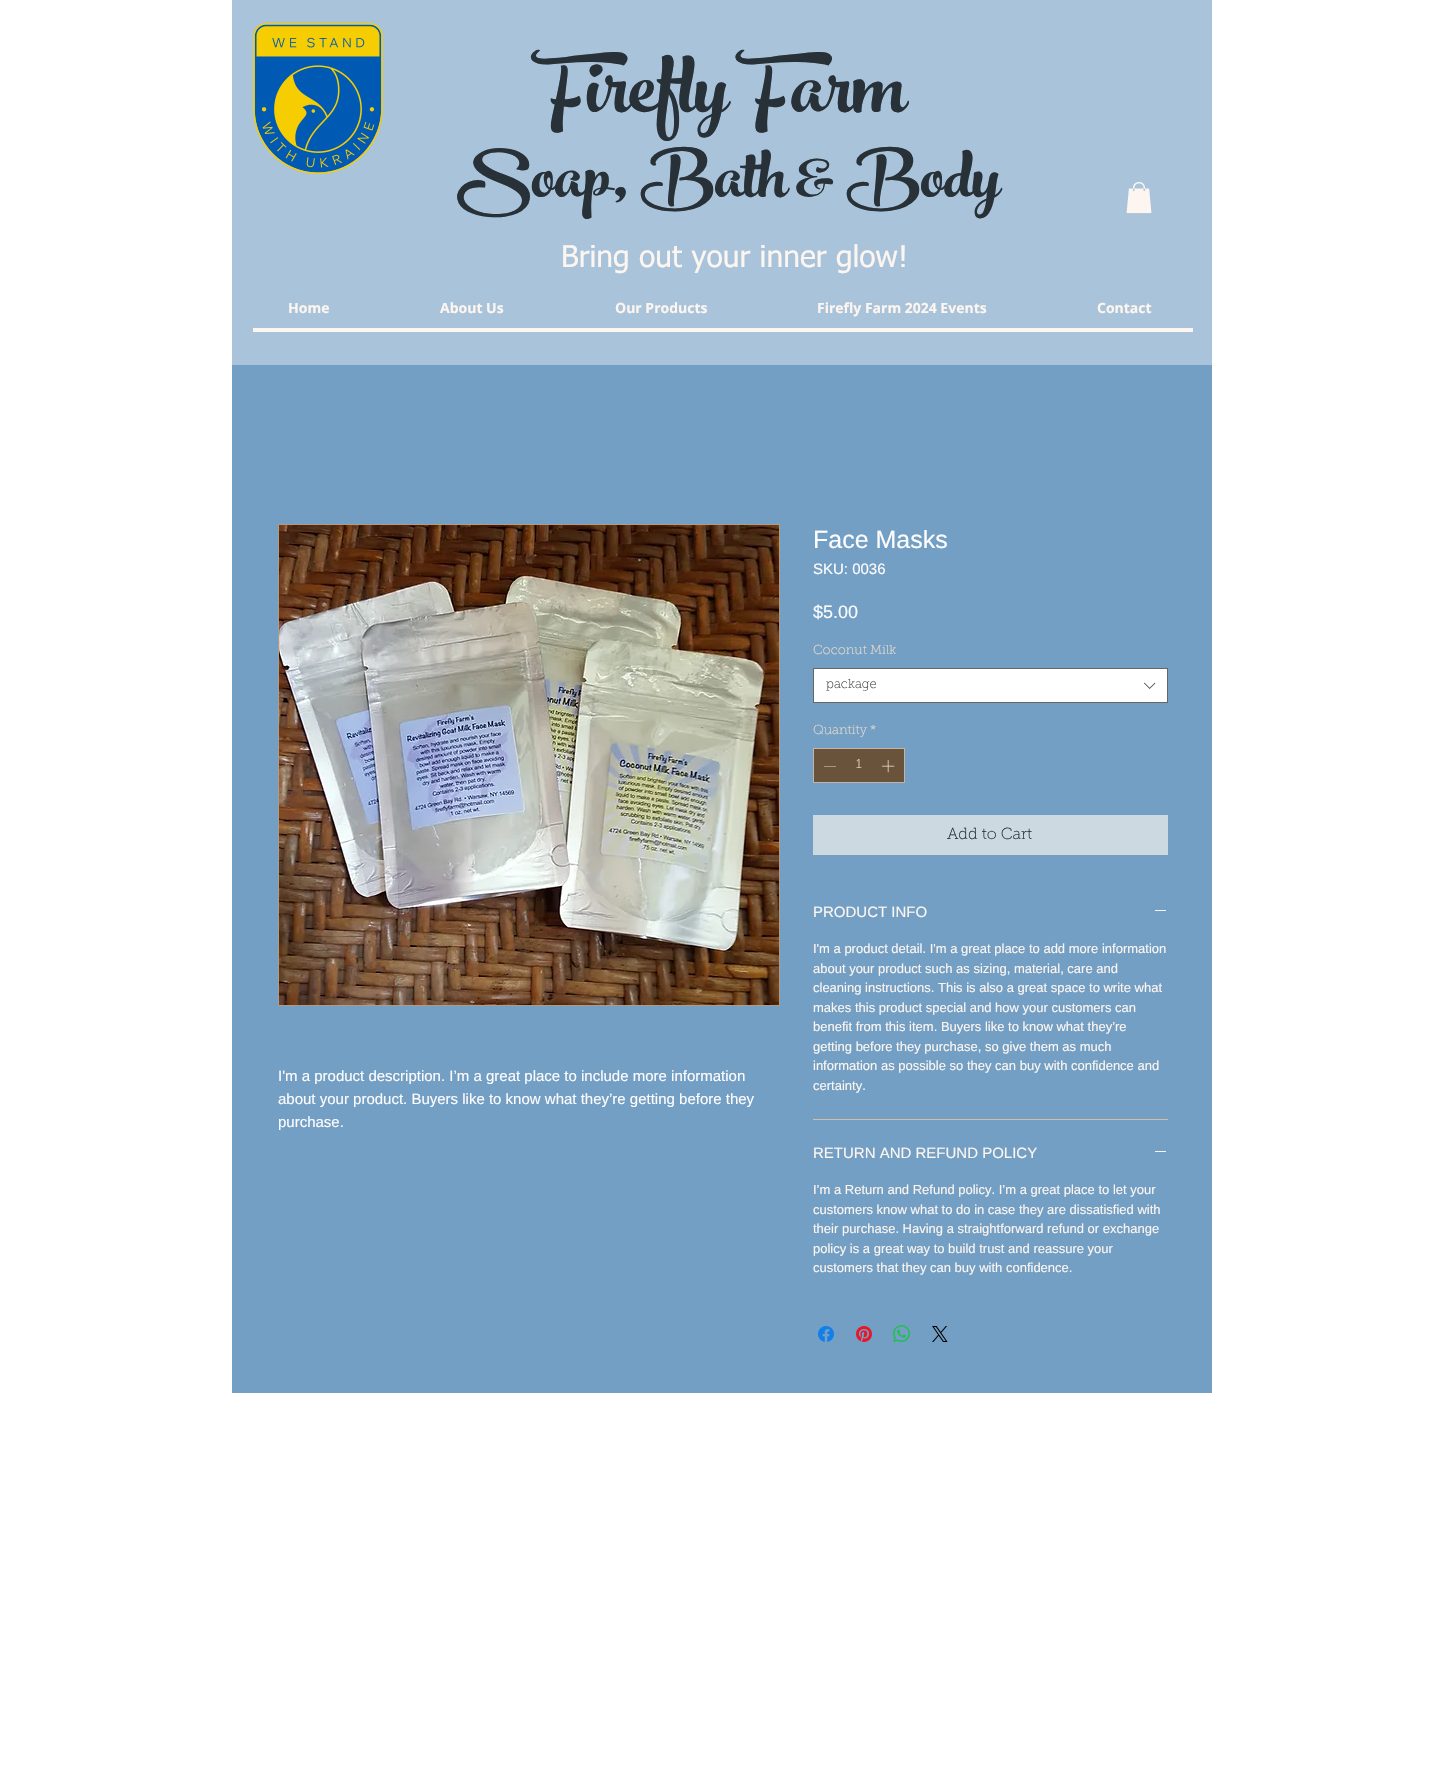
#include "include/core/SkBlurTypes.h"
#include "include/core/SkCanvas.h"
#include "include/core/SkData.h"
#include "include/core/SkFont.h"
#include "include/core/SkFontMgr.h"
#include "include/core/SkImage.h"
#include "include/core/SkMaskFilter.h"
#include "include/core/SkPaint.h"
#include "include/core/SkPathBuilder.h"
#include "include/core/SkTextBlob.h"
#include "include/effects/SkDashPathEffect.h"
#include "include/effects/SkGradientShader.h"
#include "include/utils/SkParsePath.h"

extern sk_sp<SkFontMgr> fontMgr;

void draw(SkCanvas* canvas) {
    SkPaint p;
    p.setAntiAlias(true);
    auto font = [&](const char* family, int weight, float size, bool italic = false) {
        SkFontStyle style(weight, SkFontStyle::kNormal_Width,
            italic ? SkFontStyle::kItalic_Slant : SkFontStyle::kUpright_Slant);
        SkFont result(fontMgr->matchFamilyStyle(family, style), size);
        result.setSubpixel(true);
        return result;
    };
    auto drawPhoto = [&](const char* path, float l, float t, float r, float b) {
        auto image = SkImages::DeferredFromEncodedData(SkData::MakeFromFileName(path));
        canvas->drawImageRect(image, SkRect::MakeLTRB(l, t, r, b), SkSamplingOptions());
    };
    canvas->clear(0xFFFFFFFF);
    p.setColor(0xFFA9C3DA);
    canvas->drawRect(SkRect::MakeLTRB(232, 0, 1212, 365), p);
    drawPhoto("media/1.png", 253, 23, 383, 174);
    auto font1 = font("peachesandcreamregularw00", 400, 120);
    p.setColor(0xFF283137);
    canvas->drawString("Firefly Farm", 537, 112, font1, p);
    auto font2 = font("peachesandcreamregularw00", 400, 100);
    canvas->drawString("Soap, Bath & Body", 457, 197, font2, p);
    auto font3 = font("tahoma", 400, 30);
    p.setColor(0xFFFDF6F0);
    canvas->drawString("Bring out your inner glow!", 561, 267, font3, p);
    drawPhoto("media/2.png", 1126, 182, 1152, 214);
    auto font4 = font("Open Sans", 700, 14);
    {
        const struct { const char* s; float x, y; } items[] = {
            {"Home", 288, 313},
            {"About Us", 440, 313},
            {"Our Products", 615, 313},
            {"Firefly Farm 2024 Events", 817, 313},
            {"Contact", 1097, 313},
        };
        for (auto [s, x, y] : items) {
            canvas->drawString(s, x, y, font4, p);
        }
    }
    canvas->drawRect(SkRect::MakeLTRB(253, 328, 1193, 332), p);
    p.setColor(0xFF739FC5);
    canvas->drawRect(SkRect::MakeLTRB(232, 365, 1212, 1393), p);
    p.setStyle(SkPaint::kStroke_Style);
    p.setStrokeWidth(1);
    p.setColor(0xFFB49B7F);
    canvas->drawRect(SkRect::MakeLTRB(278.5f, 524.5f, 779.5f, 1005.5f), p);
    drawPhoto("media/3.png", 279, 525, 779, 1005);
    auto font5 = font("Liberation Sans", 400, 15);
    p.setStyle(SkPaint::kFill_Style);
    p.setColor(0xFFFEFDFD);
    {
        const struct { const char* s; float x, y; } items[] = {
            {"I'm a product description. I’m a great place to include more information", 278, 1081},
            {"about your product. Buyers like to know what they’re getting before they", 278, 1104},
            {"purchase.", 278, 1127},
        };
        for (auto [s, x, y] : items) {
            canvas->drawString(s, x, y, font5, p);
        }
    }
    auto font6 = font("Liberation Sans", 400, 25);
    canvas->drawString("Face Masks", 813, 548, font6, p);
    canvas->drawString("SKU: 0036", 813, 574, font5, p);
    auto font7 = font("Liberation Sans", 400, 18);
    canvas->drawString("$5.00", 813, 618, font7, p);
    auto font8 = font("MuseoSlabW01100", 100, 13);
    p.setColor(0xFFE9DBCB);
    canvas->drawString("Coconut Milk", 813, 654, font8, p);
    p.setColor(0xFFFFFFFF);
    canvas->drawRect(SkRect::MakeLTRB(813.5f, 668.5f, 1167.5f, 702.5f), p);
    p.setStyle(SkPaint::kStroke_Style);
    p.setColor(0xFF666666);
    canvas->drawRect(SkRect::MakeLTRB(813.5f, 668.5f, 1167.5f, 702.5f), p);
    p.setStyle(SkPaint::kFill_Style);
    p.setColor(0xFF444444);
    canvas->drawString("package", 826, 688, font8, p);
    drawPhoto("media/4.png", 1144, 682, 1156, 689);
    p.setColor(0xFFE9DBCB);
    canvas->drawString("Quantity", 813, 734, font8, p);
    canvas->drawString("*", 870, 734, font8, p);
    p.setColor(0xFF69533A);
    canvas->drawRect(SkRect::MakeLTRB(813.5f, 748.5f, 904.5f, 782.5f), p);
    p.setStyle(SkPaint::kStroke_Style);
    p.setColor(0xFFC2B5A7);
    canvas->drawRect(SkRect::MakeLTRB(813.5f, 748.5f, 904.5f, 782.5f), p);
    p.setStyle(SkPaint::kFill_Style);
    p.setColor(0xFFE9DBCB);
    canvas->drawPath(SkPathBuilder(SkPathFillType::kEvenOdd).moveTo(836, 766).lineTo(836, 766.5f).lineTo(824, 766.5f).lineTo(824, 766).close().detach(), p);
    canvas->drawString("1", 856, 768, font8, p);
    drawPhoto("media/5.png", 882, 760, 895, 773);
    p.setColor(0xFFCCD9E1);
    canvas->drawRect(SkRect::MakeLTRB(813, 815, 1168, 855), p);
    auto font9 = font("MuseoSlabW01100", 100, 16);
    p.setColor(0xFF283137);
    canvas->drawString("Add to Cart", 947, 839, font9, p);
    p.setColor(0xFFD1BEA9);
    canvas->drawRect(SkRect::MakeLTRB(813, 1119, 1168, 1120), p);
    p.setColor(0xFFFDF6F0);
    canvas->drawString("PRODUCT INFO", 813, 917, font5, p);
    canvas->drawRect(SkRect::MakeLTRB(1155, 910, 1166, 911), p);
    auto font10 = font("Liberation Sans", 400, 13);
    {
        const struct { const char* s; float x, y; } items[] = {
            {"I'm a product detail. I'm a great place to add more information", 813, 953},
            {"about your product such as sizing, material, care and", 813, 973},
            {"cleaning instructions. This is also a great space to write what", 813, 992},
            {"makes this product special and how your customers can", 813, 1012},
            {"benefit from this item. Buyers like to know what they’re", 813, 1031},
            {"getting before they purchase, so give them as much", 813, 1051},
            {"information as possible so they can buy with confidence and", 813, 1070},
            {"certainty.", 813, 1090},
        };
        for (auto [s, x, y] : items) {
            canvas->drawString(s, x, y, font10, p);
        }
    }
    canvas->drawString("RETURN AND REFUND POLICY", 813, 1158, font5, p);
    canvas->drawRect(SkRect::MakeLTRB(1155, 1151, 1166, 1152), p);
    {
        const struct { const char* s; float x, y; } items[] = {
            {"I’m a Return and Refund policy. I’m a great place to let your", 813, 1194},
            {"customers know what to do in case they are dissatisfied with", 813, 1214},
            {"their purchase. Having a straightforward refund or exchange", 813, 1233},
            {"policy is a great way to build trust and reassure your", 813, 1253},
            {"customers that they can buy with confidence.", 813, 1272},
        };
        for (auto [s, x, y] : items) {
            canvas->drawString(s, x, y, font10, p);
        }
    }
    drawPhoto("media/6.png", 818, 1326, 834, 1342);
    drawPhoto("media/7.png", 856, 1326, 872, 1342);
    drawPhoto("media/8.png", 893, 1325, 910, 1342);
    drawPhoto("media/9.png", 932, 1326, 948, 1342);
}
